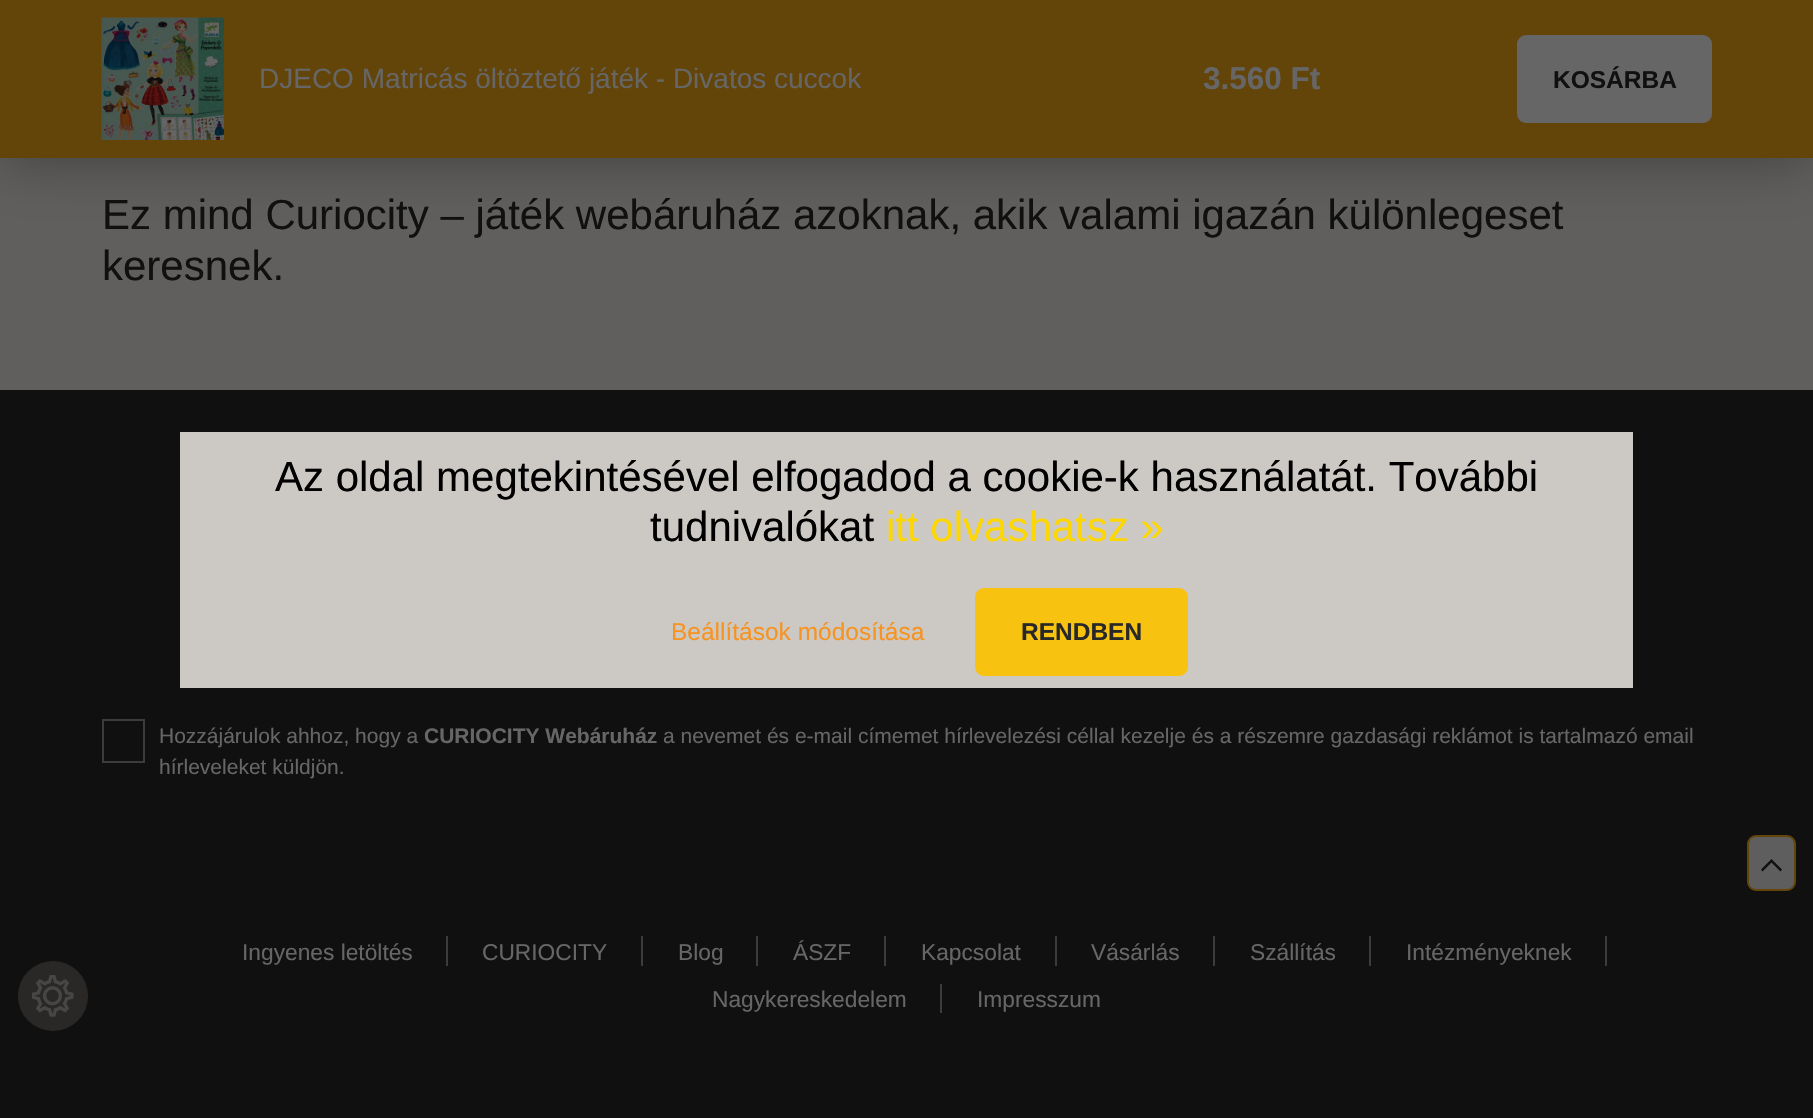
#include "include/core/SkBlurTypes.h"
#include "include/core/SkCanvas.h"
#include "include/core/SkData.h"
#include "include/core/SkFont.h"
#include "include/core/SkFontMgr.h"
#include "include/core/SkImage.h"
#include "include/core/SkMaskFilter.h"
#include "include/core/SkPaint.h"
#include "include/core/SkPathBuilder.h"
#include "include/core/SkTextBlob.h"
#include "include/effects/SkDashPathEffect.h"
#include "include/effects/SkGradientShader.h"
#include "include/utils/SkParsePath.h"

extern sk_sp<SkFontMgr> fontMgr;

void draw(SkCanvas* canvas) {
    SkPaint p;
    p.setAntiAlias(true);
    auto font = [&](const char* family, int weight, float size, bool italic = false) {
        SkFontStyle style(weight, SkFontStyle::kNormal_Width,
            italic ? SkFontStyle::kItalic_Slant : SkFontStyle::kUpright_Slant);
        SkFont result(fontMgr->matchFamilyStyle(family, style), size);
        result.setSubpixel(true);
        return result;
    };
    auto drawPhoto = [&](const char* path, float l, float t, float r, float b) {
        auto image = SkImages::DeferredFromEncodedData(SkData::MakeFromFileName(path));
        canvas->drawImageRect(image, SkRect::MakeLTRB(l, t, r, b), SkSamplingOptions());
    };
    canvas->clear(0xFF615F5D);
    p.setColor(0xFF101010);
    canvas->drawRect(SkRect::MakeLTRB(0, 390, 1813, 1118), p);
    p.setColor(0xFF292827);
    canvas->drawCircle(53, 996, 35, p);
    drawPhoto("media/1.png", 32, 975, 74, 1017);
    p.setColor(0x59000000);
    p.setMaskFilter(SkMaskFilter::MakeBlur(kNormal_SkBlurStyle, 30));
    canvas->drawRect(SkRect::MakeLTRB(0, 0, 1813, 158), p);
    p.setMaskFilter(nullptr);
    p.setColor(0xFF634409);
    canvas->drawRect(SkRect::MakeLTRB(0, 0, 1813, 158), p);
    drawPhoto("media/2.png", 101, 17, 224, 140);
    auto font1 = font("Liberation Sans", 400, 28);
    p.setColor(0xFF666666);
    canvas->drawString("DJECO Matricás öltöztető játék - Divatos cuccok", 259, 88, font1, p);
    auto font2 = font("Liberation Sans", 700, 31.5f);
    canvas->drawString("3.560 Ft", 1203, 89, font2, p);
    canvas->drawRoundRect(SkRect::MakeLTRB(1517, 35, 1712, 123), 9, 9, p);
    auto font3 = font("Liberation Sans", 700, 24.5f);
    p.setColor(0xFF101010);
    canvas->drawString("KOSÁRBA", 1553, 88, font3, p);
    auto font4 = font("Liberation Sans", 400, 42);
    canvas->drawString("Ez mind Curiocity – játék webáruház azoknak, akik valami igazán különlegeset", 102, 229, font4, p);
    canvas->drawString("keresnek.", 102, 280, font4, p);
    p.setStyle(SkPaint::kStroke_Style);
    p.setStrokeWidth(2);
    p.setColor(0xFF3D3C3B);
    canvas->drawRect(SkRect::MakeLTRB(103, 720, 144, 762), p);
    auto font5 = font("Liberation Sans", 400, 21);
    p.setStyle(SkPaint::kFill_Style);
    p.setColor(0xFF666666);
    canvas->drawString("Hozzájárulok ahhoz, hogy a", 159, 743, font5, p);
    auto font6 = font("Liberation Sans", 700, 21);
    canvas->drawString("CURIOCITY Webáruház", 424, 743, font6, p);
    canvas->drawString("a nevemet és e-mail címemet hírlevelezési céllal kezelje és a részemre gazdasági reklámot is tartalmazó email", 663, 743, font5, p);
    canvas->drawString("hírleveleket küldjön.", 159, 774, font5, p);
    auto font7 = font("Liberation Sans", 400, 22.75f);
    canvas->drawString("Ingyenes letöltés", 242, 960, font7, p);
    p.setColor(0xFF3D3C3B);
    canvas->drawRect(SkRect::MakeLTRB(446, 936, 448, 966), p);
    p.setColor(0xFF666666);
    canvas->drawString("CURIOCITY", 482, 960, font7, p);
    p.setColor(0xFF3D3C3B);
    canvas->drawRect(SkRect::MakeLTRB(641, 936, 643, 966), p);
    p.setColor(0xFF666666);
    canvas->drawString("Blog", 678, 960, font7, p);
    p.setColor(0xFF3D3C3B);
    canvas->drawRect(SkRect::MakeLTRB(756, 936, 758, 966), p);
    p.setColor(0xFF666666);
    canvas->drawString("ÁSZF", 793, 960, font7, p);
    p.setColor(0xFF3D3C3B);
    canvas->drawRect(SkRect::MakeLTRB(884, 936, 886, 966), p);
    p.setColor(0xFF666666);
    canvas->drawString("Kapcsolat", 921, 960, font7, p);
    p.setColor(0xFF3D3C3B);
    canvas->drawRect(SkRect::MakeLTRB(1055, 936, 1057, 966), p);
    p.setColor(0xFF666666);
    canvas->drawString("Vásárlás", 1091, 960, font7, p);
    p.setColor(0xFF3D3C3B);
    canvas->drawRect(SkRect::MakeLTRB(1213, 936, 1215, 966), p);
    p.setColor(0xFF666666);
    canvas->drawString("Szállítás", 1250, 960, font7, p);
    p.setColor(0xFF3D3C3B);
    canvas->drawRect(SkRect::MakeLTRB(1369, 936, 1371, 966), p);
    p.setColor(0xFF666666);
    canvas->drawString("Intézményeknek", 1406, 960, font7, p);
    p.setColor(0xFF3D3C3B);
    canvas->drawRect(SkRect::MakeLTRB(1605, 936, 1607, 966), p);
    p.setColor(0xFF666666);
    canvas->drawString("Nagykereskedelem", 712, 1007, font7, p);
    p.setColor(0xFF3D3C3B);
    canvas->drawRect(SkRect::MakeLTRB(940, 984, 942, 1013), p);
    p.setColor(0xFF666666);
    canvas->drawString("Impresszum", 977, 1007, font7, p);
    p.setColor(0xFF5E5E5E);
    canvas->drawRoundRect(SkRect::MakeLTRB(1748, 836, 1795, 890), 8, 8, p);
    p.setStyle(SkPaint::kStroke_Style);
    p.setColor(0xFF634409);
    canvas->drawRoundRect(SkRect::MakeLTRB(1748, 836, 1795, 890), 8, 8, p);
    p.setStyle(SkPaint::kFill_Style);
    p.setColor(0xFF101010);
    canvas->drawPath(SkPathBuilder().moveTo(1761, 869.5f).lineTo(1762.5f, 871.5f).lineTo(1771.5f, 862.5f).lineTo(1780.5f, 871.5f).lineTo(1782, 869.5f).lineTo(1771.5f, 859).close().detach(), p);
    p.setColor(0xFFCCC9C4);
    canvas->drawRect(SkRect::MakeLTRB(180, 432, 1633, 688), p);
    p.setColor(0xFF000000);
    canvas->drawString("Az oldal megtekintésével elfogadod a cookie-k használatát. További", 275, 491, font4, p);
    canvas->drawString("tudnivalókat", 650, 541, font4, p);
    p.setColor(0xFFFFD700);
    canvas->drawString("itt olvashatsz »", 886, 541, font4, p);
    auto font8 = font("Liberation Sans", 400, 24.5f);
    p.setColor(0xFFF79320);
    canvas->drawString("Beállítások módosítása", 671, 640, font8, p);
    p.setColor(0xFFF8C211);
    canvas->drawRoundRect(SkRect::MakeLTRB(975, 588, 1188, 676), 9, 9, p);
    p.setColor(0xFF282828);
    canvas->drawString("RENDBEN", 1021, 640, font3, p);
}
